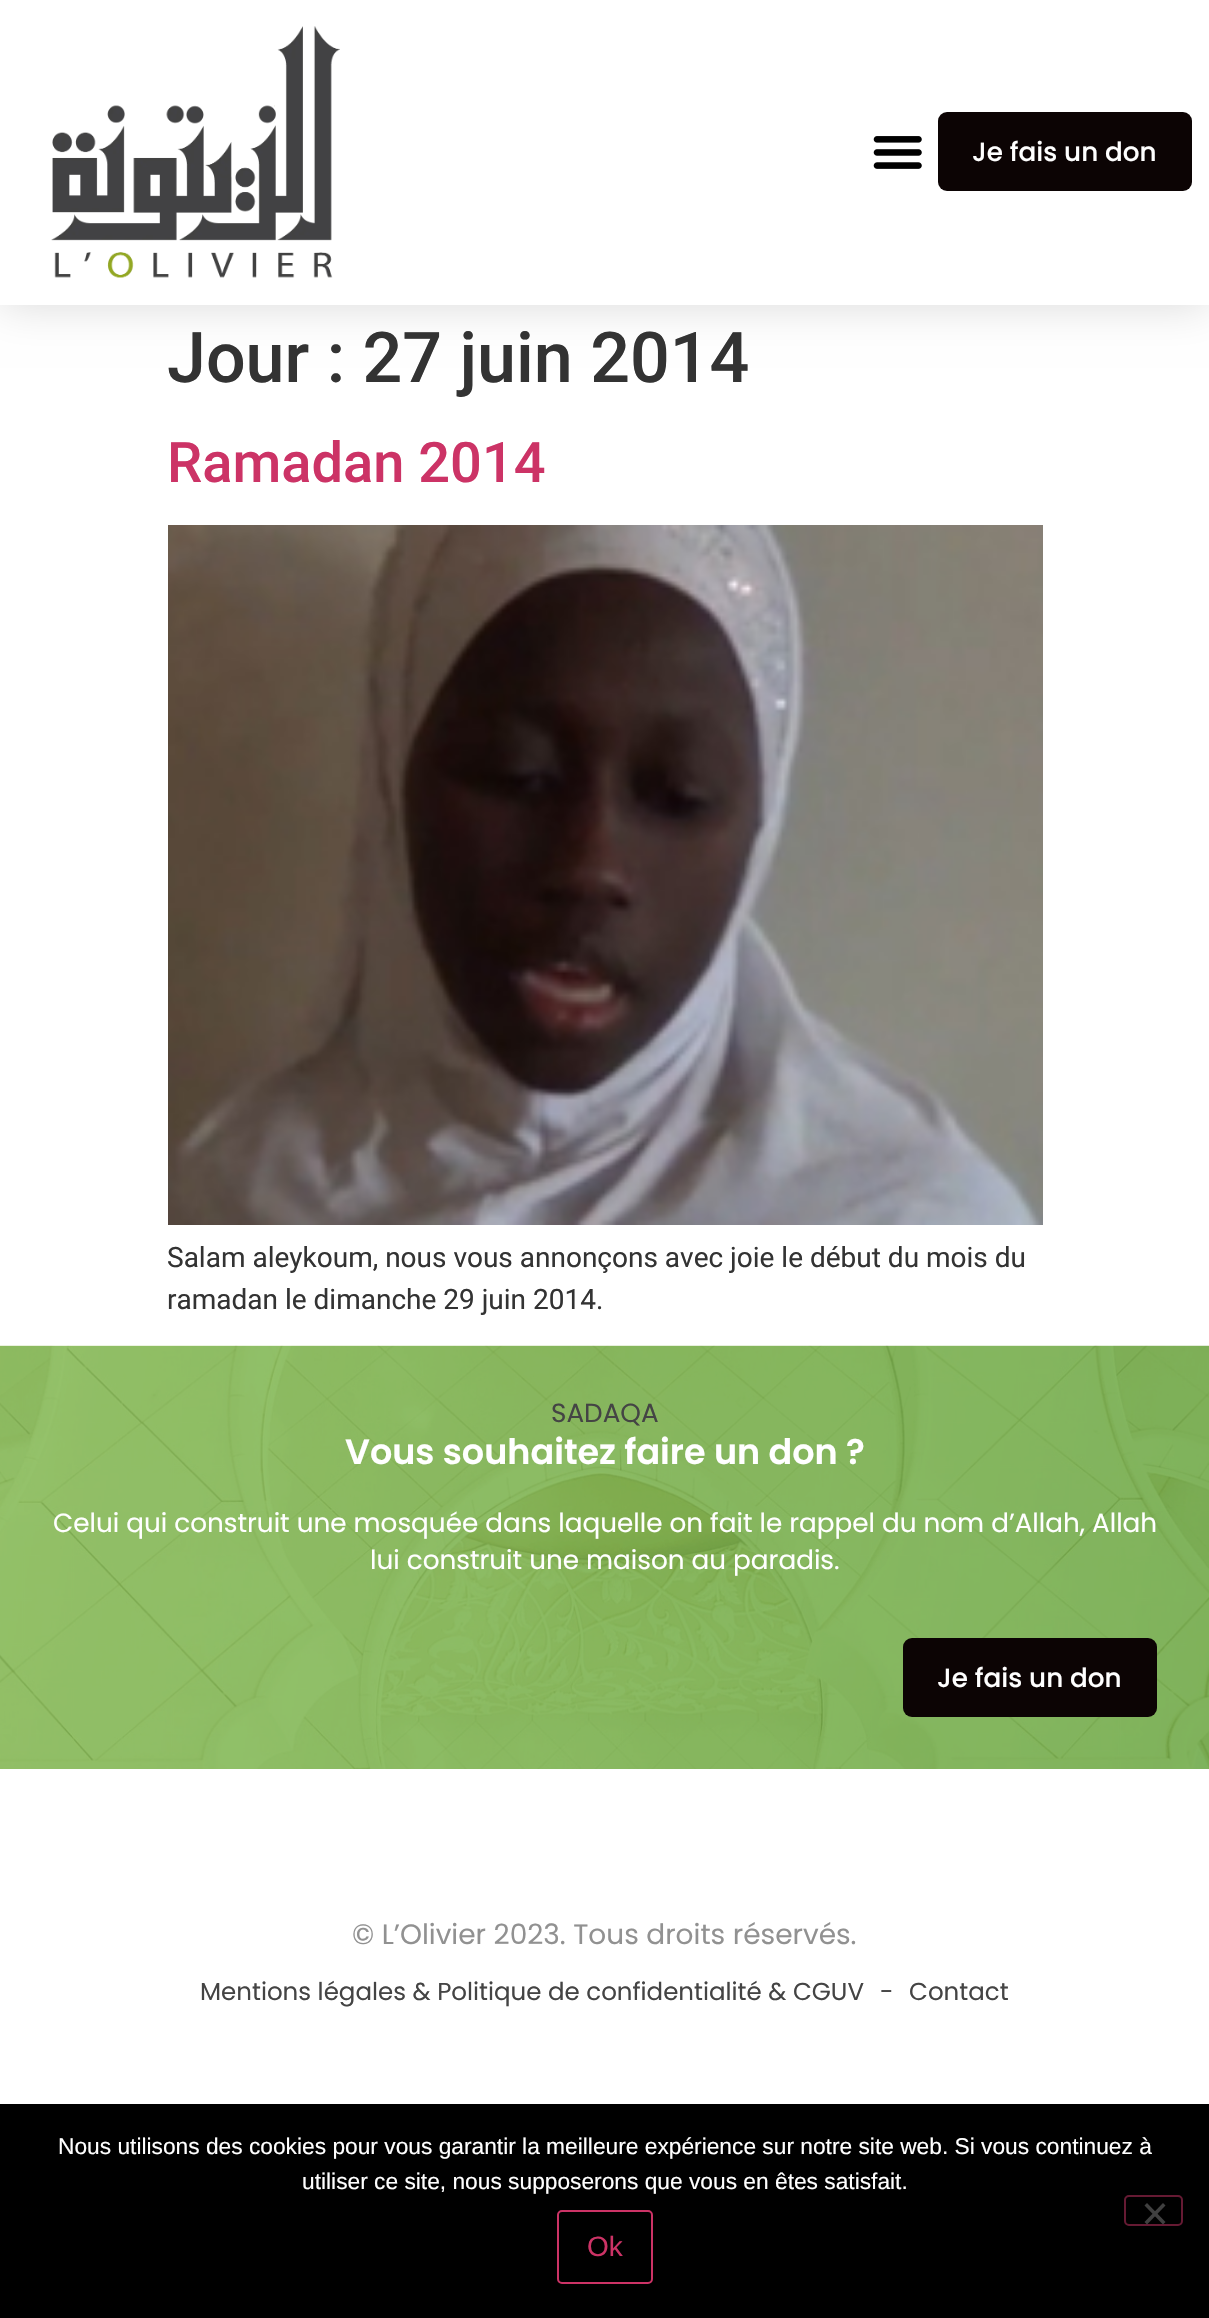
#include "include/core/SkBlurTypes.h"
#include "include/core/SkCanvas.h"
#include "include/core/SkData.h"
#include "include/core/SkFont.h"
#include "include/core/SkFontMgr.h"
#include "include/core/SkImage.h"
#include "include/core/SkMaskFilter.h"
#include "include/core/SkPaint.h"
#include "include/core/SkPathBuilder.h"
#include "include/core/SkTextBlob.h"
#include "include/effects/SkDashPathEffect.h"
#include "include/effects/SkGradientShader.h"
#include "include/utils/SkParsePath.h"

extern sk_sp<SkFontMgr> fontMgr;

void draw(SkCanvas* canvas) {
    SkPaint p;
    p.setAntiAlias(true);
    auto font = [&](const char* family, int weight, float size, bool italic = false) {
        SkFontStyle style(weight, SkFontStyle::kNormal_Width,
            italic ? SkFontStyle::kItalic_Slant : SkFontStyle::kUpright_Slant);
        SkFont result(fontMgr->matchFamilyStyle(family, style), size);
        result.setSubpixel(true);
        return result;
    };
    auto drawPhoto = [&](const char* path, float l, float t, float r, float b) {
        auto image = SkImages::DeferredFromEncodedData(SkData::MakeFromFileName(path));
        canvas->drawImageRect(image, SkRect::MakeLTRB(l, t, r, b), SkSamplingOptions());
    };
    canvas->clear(0xFFFFFFFF);
    p.setColor(0x26000000);
    p.setMaskFilter(SkMaskFilter::MakeBlur(kNormal_SkBlurStyle, 21));
    canvas->drawRect(SkRect::MakeLTRB(0, 0, 1209, 305), p);
    p.setMaskFilter(nullptr);
    p.setColor(0xFFFFFFFF);
    canvas->drawRect(SkRect::MakeLTRB(0, 0, 1209, 305), p);
    drawPhoto("media/1.png", 51, 26, 340, 278);
    drawPhoto("media/2.png", 873, 136, 922, 169);
    p.setColor(0xFF0C0404);
    canvas->drawRoundRect(SkRect::MakeLTRB(938, 112, 1192, 191), 9, 9, p);
    auto font1 = font("Poppins", 500, 26.25f);
    p.setColor(0xFFFFFFFF);
    canvas->drawString("Je fais un don", 972, 161, font1, p);
    auto font2 = font("Roboto", 500, 70);
    p.setColor(0xFF333333);
    canvas->drawString("Jour : 27 juin 2014", 167, 382, font2, p);
    auto font3 = font("Roboto", 500, 56);
    p.setColor(0xFFCC3366);
    canvas->drawString("Ramadan 2014", 167, 482, font3, p);
    drawPhoto("media/3.png", 168, 525, 1043, 1225);
    auto font4 = font("Roboto", 400, 28);
    p.setColor(0xFF333333);
    canvas->drawString("Salam aleykoum, nous vous annonçons avec joie le début du mois du", 167, 1267, font4, p);
    canvas->drawString("ramadan le dimanche 29 juin 2014.", 167, 1309, font4, p);
    drawPhoto("media/4.png", 0, 1345, 1209, 1769);
    auto font5 = font("Poppins", 400, 26.25f);
    p.setColor(0xFF444444);
    canvas->drawString("SADAQA", 551, 1422, font5, p);
    auto font6 = font("Poppins", 600, 35);
    p.setColor(0xFFFFFFFF);
    canvas->drawString("Vous souhaitez faire un don ?", 345, 1464, font6, p);
    canvas->drawString("Celui qui construit une mosquée dans laquelle on fait le rappel du nom d’Allah, Allah", 53, 1532, font5, p);
    canvas->drawString("lui construit une maison au paradis.", 370, 1569, font5, p);
    p.setColor(0xFF0C0404);
    canvas->drawRoundRect(SkRect::MakeLTRB(903, 1638, 1157, 1717), 9, 9, p);
    p.setColor(0xFFFFFFFF);
    canvas->drawString("Je fais un don", 937, 1687, font1, p);
    auto font7 = font("Poppins", 400, 28);
    p.setColor(0xFF919191);
    canvas->drawString("© L’Olivier 2023. Tous droits réservés.", 352, 1944, font7, p);
    auto font8 = font("Poppins", 400, 24.5f);
    p.setColor(0xFF444444);
    {
        const struct { const char* s; float x, y; } items[] = {
            {"Mentions légales & Politique de confidentialité & CGUV", 200, 2000},
            {"-", 880, 2000},
            {"Contact", 909, 2000},
        };
        for (auto [s, x, y] : items) {
            canvas->drawString(s, x, y, font8, p);
        }
    }
    p.setColor(0xFF000000);
    canvas->drawRect(SkRect::MakeLTRB(0, 2104, 1209, 2318), p);
    auto font9 = font("Liberation Sans", 400, 22.75f);
    p.setColor(0xFFFFFFFF);
    canvas->drawString("Nous utilisons des cookies pour vous garantir la meilleure expérience sur notre site web. Si vous continuez à", 58, 2154, font9, p);
    canvas->drawString("utiliser ce site, nous supposerons que vous en êtes satisfait.", 302, 2189, font9, p);
    p.setStyle(SkPaint::kStroke_Style);
    p.setStrokeWidth(2);
    p.setColor(0xFF661A33);
    canvas->drawRoundRect(SkRect::MakeLTRB(1125, 2196, 1182, 2225), 4, 4, p);
    p.setStyle(SkPaint::kFill_Style);
    p.setColor(0xFF404040);
    canvas->drawPath(SkPathBuilder().moveTo(1163, 2203).lineTo(1165.5f, 2205.5f).lineTo(1147, 2224.5f).lineTo(1144.5f, 2222).close().detach(), p);
    canvas->drawPath(SkPathBuilder().moveTo(1144.5f, 2205.5f).lineTo(1147, 2203).lineTo(1165.5f, 2222).lineTo(1163, 2224.5f).close().detach(), p);
    p.setStyle(SkPaint::kStroke_Style);
    p.setColor(0xFFCC3366);
    canvas->drawRoundRect(SkRect::MakeLTRB(558, 2211, 652, 2283), 4, 4, p);
    auto font10 = font("Liberation Sans", 400, 28);
    p.setStyle(SkPaint::kFill_Style);
    canvas->drawString("Ok", 587, 2256, font10, p);
}
